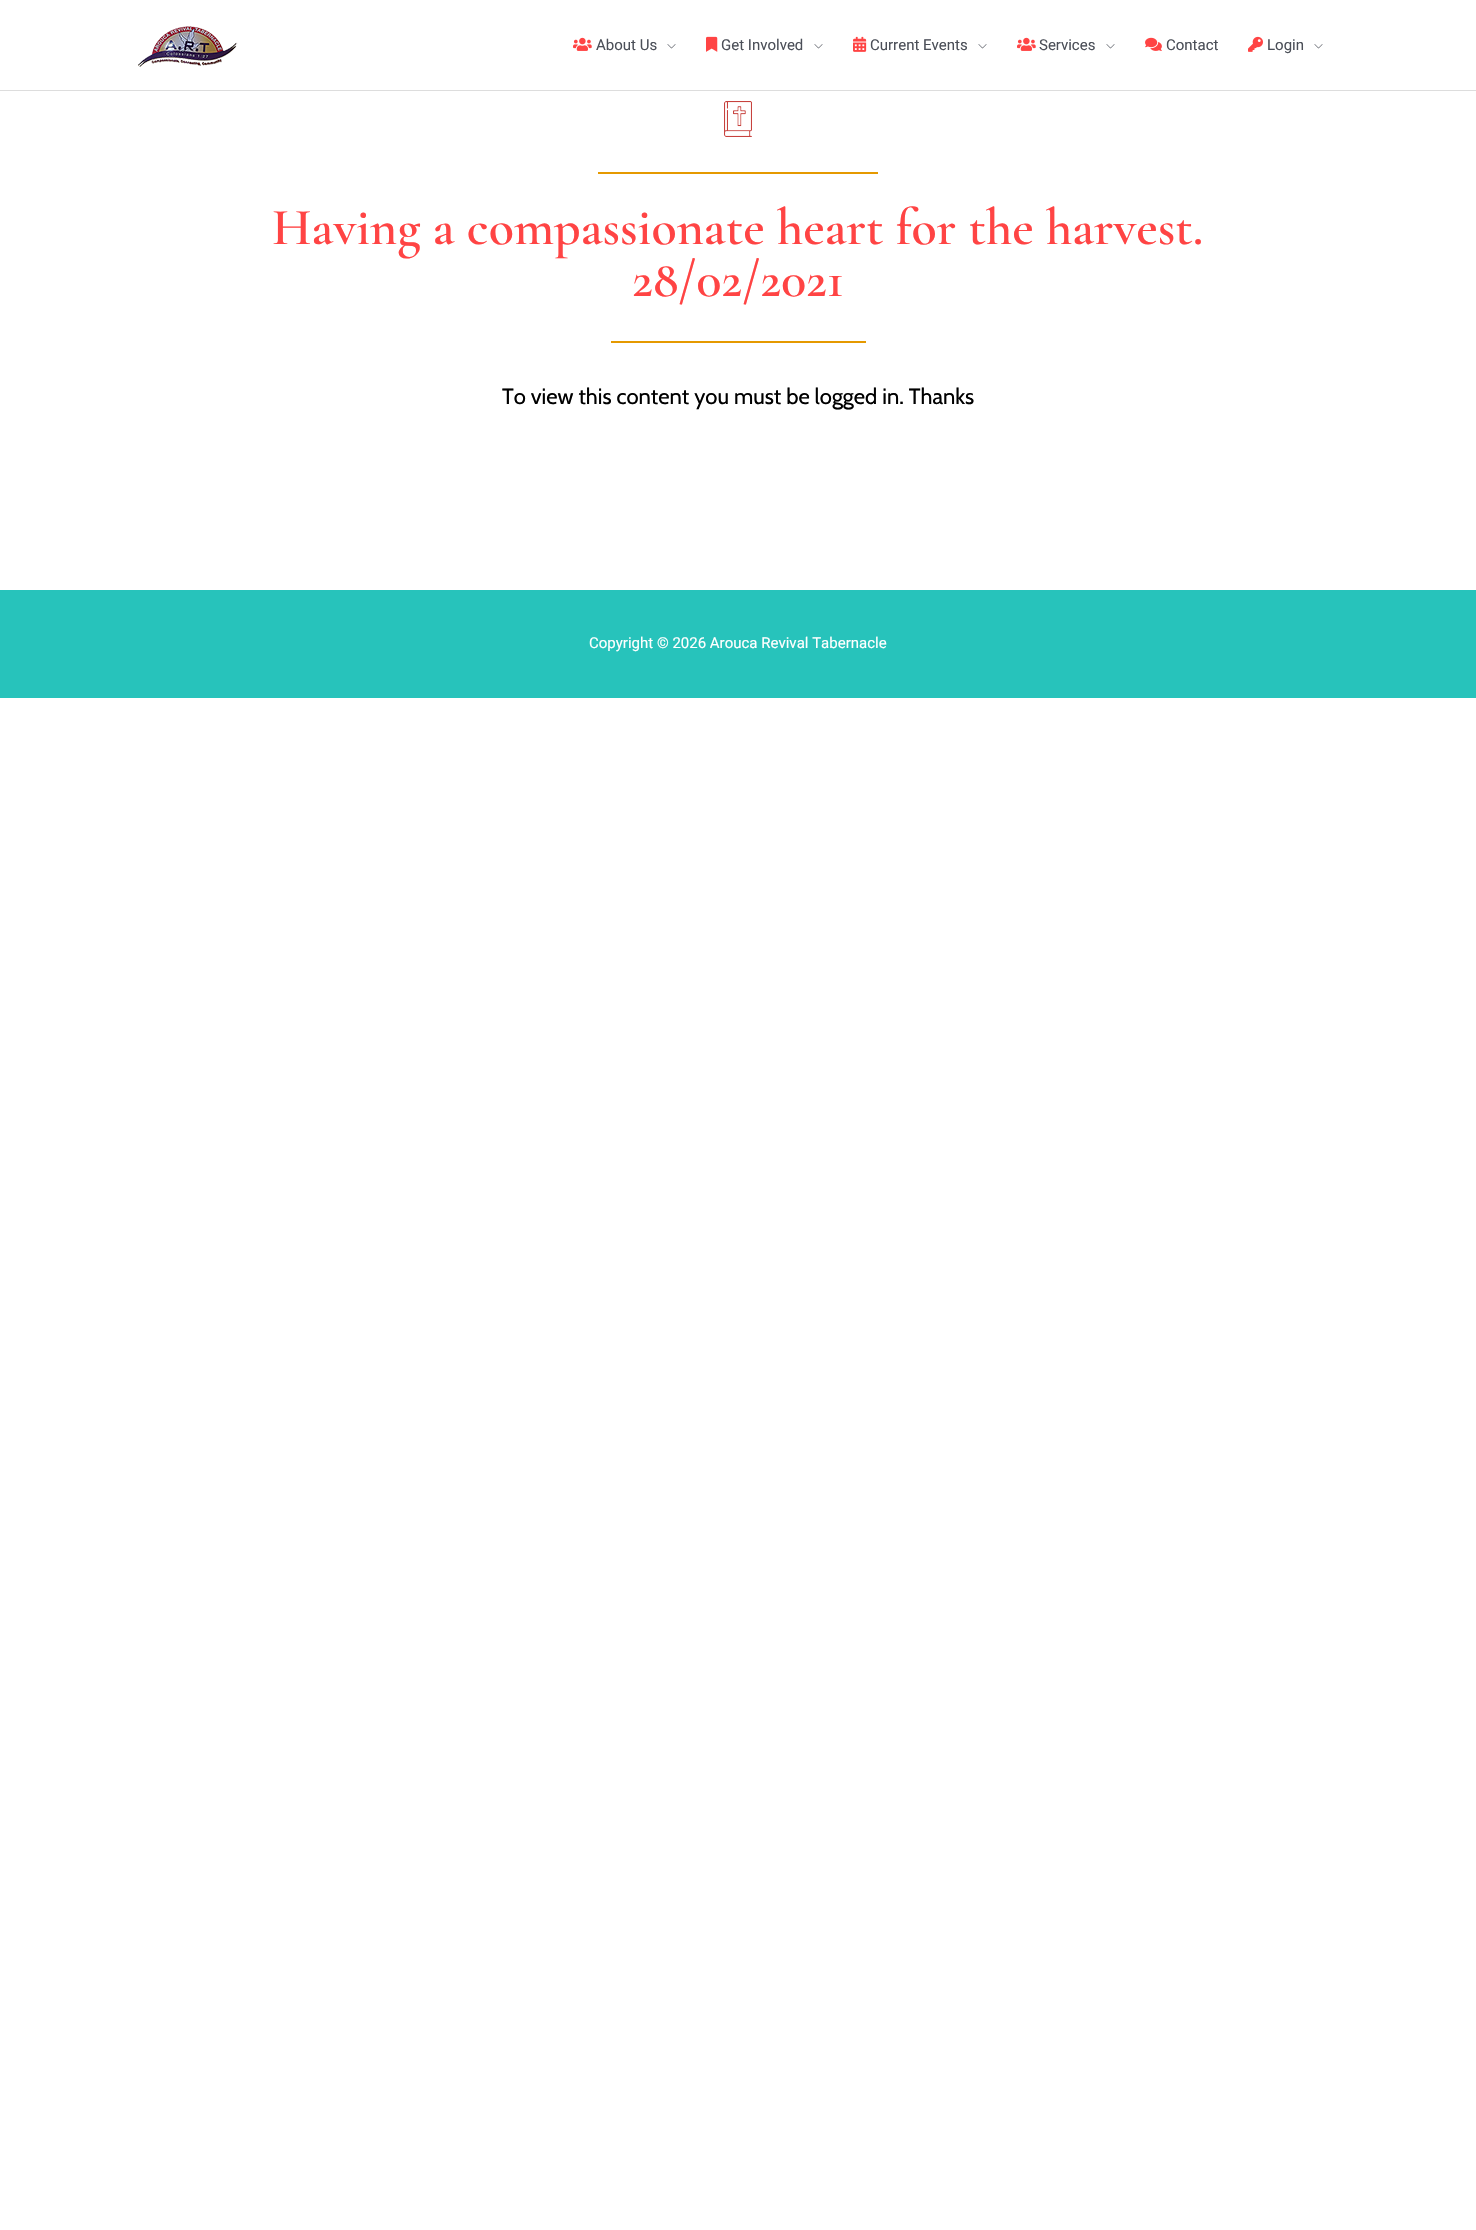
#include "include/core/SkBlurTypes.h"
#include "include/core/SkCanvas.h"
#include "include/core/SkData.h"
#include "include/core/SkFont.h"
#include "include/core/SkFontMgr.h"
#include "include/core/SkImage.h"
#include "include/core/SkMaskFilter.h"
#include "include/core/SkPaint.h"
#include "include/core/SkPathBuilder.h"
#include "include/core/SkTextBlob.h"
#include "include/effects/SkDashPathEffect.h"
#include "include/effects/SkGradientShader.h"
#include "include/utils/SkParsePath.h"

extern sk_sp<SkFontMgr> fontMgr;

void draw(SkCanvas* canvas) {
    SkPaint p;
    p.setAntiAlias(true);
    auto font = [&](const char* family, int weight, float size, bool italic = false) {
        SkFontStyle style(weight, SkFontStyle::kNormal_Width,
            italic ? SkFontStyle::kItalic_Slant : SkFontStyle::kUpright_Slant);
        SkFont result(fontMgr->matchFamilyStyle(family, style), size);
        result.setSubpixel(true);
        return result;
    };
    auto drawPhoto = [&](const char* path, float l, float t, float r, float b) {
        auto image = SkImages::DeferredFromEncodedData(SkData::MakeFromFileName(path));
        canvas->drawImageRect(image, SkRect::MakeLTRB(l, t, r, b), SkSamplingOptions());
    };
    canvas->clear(0xFFFFFFFF);
    p.setColor(0xFFDDDDDD);
    canvas->drawRect(SkRect::MakeLTRB(0, 90, 1476, 91), p);
    drawPhoto("media/1.png", 138, 26, 238, 67);
    drawPhoto("media/2.png", 573, 37, 592, 51);
    auto font1 = font("Roboto", 400, 15);
    p.setColor(0xFF4B4F58);
    canvas->drawString("About Us", 596, 50, font1, p);
    drawPhoto("media/3.png", 667, 44, 676, 49);
    drawPhoto("media/4.png", 706, 36, 718, 52);
    canvas->drawString("Get Involved", 721, 50, font1, p);
    drawPhoto("media/3.png", 814, 44, 823, 49);
    drawPhoto("media/5.png", 853, 36, 867, 52);
    canvas->drawString("Current Events", 870, 50, font1, p);
    drawPhoto("media/3.png", 978, 44, 987, 49);
    drawPhoto("media/2.png", 1017, 37, 1036, 51);
    canvas->drawString("Services", 1039, 50, font1, p);
    drawPhoto("media/3.png", 1106, 44, 1115, 49);
    drawPhoto("media/6.png", 1145, 37, 1162, 51);
    canvas->drawString("Contact", 1166, 50, font1, p);
    drawPhoto("media/7.png", 1248, 36, 1263, 52);
    canvas->drawString("Login", 1267, 50, font1, p);
    drawPhoto("media/3.png", 1314, 44, 1323, 49);
    drawPhoto("media/8.png", 724, 101, 752, 137);
    p.setColor(0xFFE59900);
    canvas->drawRect(SkRect::MakeLTRB(598, 172, 878, 174), p);
    auto font2 = font("Cormorant Garamond", 600, 52);
    p.setColor(0xFFFF4444);
    canvas->drawString("Having a compassionate heart for the harvest.", 272, 244, font2, p);
    canvas->drawString("28/02/2021", 632, 296, font2, p);
    p.setColor(0xFFE59900);
    canvas->drawRect(SkRect::MakeLTRB(611, 341, 866, 343), p);
    auto font3 = font("Cabin", 400, 22);
    p.setColor(0xFF000000);
    canvas->drawString("To view this content you must be logged in. Thanks", 502, 404, font3, p);
    p.setColor(0xFF27C3BB);
    canvas->drawRect(SkRect::MakeLTRB(0, 590, 1476, 698), p);
    p.setColor(0xFFFFFFFF);
    canvas->drawString("Copyright © 2026 Arouca Revival Tabernacle", 589, 648, font1, p);
}
